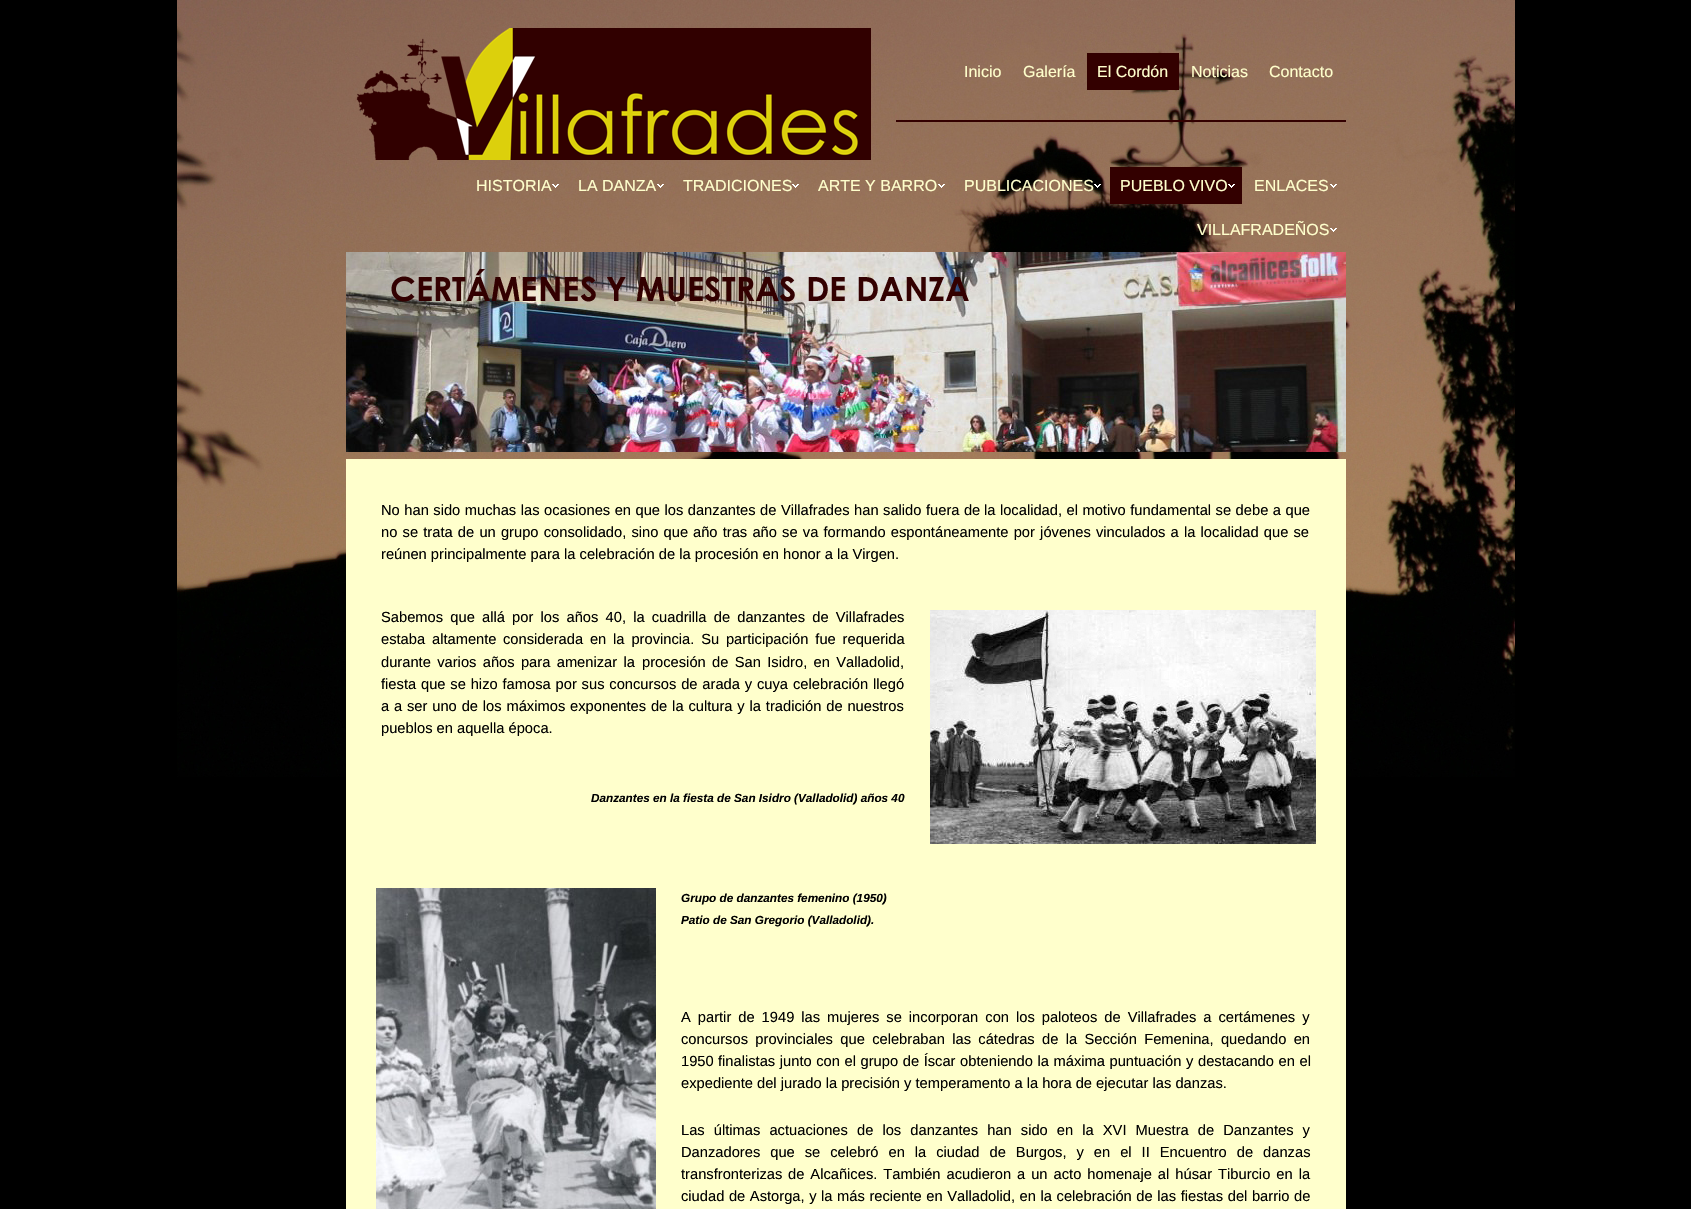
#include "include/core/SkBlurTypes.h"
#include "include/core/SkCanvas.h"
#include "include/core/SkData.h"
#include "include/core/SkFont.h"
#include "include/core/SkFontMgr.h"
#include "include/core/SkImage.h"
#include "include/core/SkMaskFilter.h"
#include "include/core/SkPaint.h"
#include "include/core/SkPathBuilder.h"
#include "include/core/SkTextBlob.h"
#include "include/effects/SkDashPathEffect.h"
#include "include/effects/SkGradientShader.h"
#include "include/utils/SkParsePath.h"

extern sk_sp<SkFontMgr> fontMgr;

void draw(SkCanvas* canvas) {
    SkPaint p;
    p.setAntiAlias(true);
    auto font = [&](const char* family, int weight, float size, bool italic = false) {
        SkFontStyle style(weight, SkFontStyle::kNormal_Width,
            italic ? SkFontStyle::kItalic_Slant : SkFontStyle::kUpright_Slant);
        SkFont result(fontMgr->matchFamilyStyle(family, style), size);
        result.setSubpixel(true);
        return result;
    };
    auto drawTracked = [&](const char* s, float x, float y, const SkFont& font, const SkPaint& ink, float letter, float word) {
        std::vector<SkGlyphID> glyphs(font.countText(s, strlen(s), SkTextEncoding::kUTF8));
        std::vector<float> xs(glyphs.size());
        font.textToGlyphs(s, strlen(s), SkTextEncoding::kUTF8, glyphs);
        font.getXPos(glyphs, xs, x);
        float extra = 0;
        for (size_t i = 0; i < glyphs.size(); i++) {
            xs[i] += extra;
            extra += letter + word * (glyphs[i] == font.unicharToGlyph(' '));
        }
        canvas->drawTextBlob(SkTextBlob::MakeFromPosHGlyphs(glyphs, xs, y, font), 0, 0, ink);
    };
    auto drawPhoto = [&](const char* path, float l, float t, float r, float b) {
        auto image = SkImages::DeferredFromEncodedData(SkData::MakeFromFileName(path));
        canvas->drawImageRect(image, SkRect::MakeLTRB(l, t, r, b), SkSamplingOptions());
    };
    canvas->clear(0xFF000000);
    drawPhoto("media/1.png", 177, 0, 1515, 777);
    drawPhoto("media/2.png", 356, 28, 871, 160);
    p.setColor(0xFF330000);
    canvas->drawRect(SkRect::MakeLTRB(896, 120, 1346, 122), p);
    auto font1 = font("Liberation Sans", 400, 16);
    p.setColor(0xFFFFFFCC);
    canvas->drawString("Inicio", 964, 77, font1, p);
    canvas->drawString("Galería", 1023, 77, font1, p);
    p.setColor(0xFF330000);
    canvas->drawRect(SkRect::MakeLTRB(1087, 53, 1179, 90), p);
    p.setColor(0xFFFFFFCC);
    {
        const struct { const char* s; float x, y; } items[] = {
            {"El Cordón", 1097, 77},
            {"Noticias", 1191, 77},
            {"Contacto", 1269, 77},
            {"HISTORIA", 476, 191},
        };
        for (auto [s, x, y] : items) {
            canvas->drawString(s, x, y, font1, p);
        }
    }
    drawPhoto("media/3.png", 552, 184, 559, 188);
    canvas->drawString("LA DANZA", 578, 191, font1, p);
    drawPhoto("media/4.png", 657, 184, 664, 188);
    canvas->drawString("TRADICIONES", 683, 191, font1, p);
    drawPhoto("media/5.png", 792, 184, 799, 188);
    canvas->drawString("ARTE Y BARRO", 818, 191, font1, p);
    drawPhoto("media/6.png", 938, 184, 945, 188);
    canvas->drawString("PUBLICACIONES", 964, 191, font1, p);
    drawPhoto("media/7.png", 1094, 184, 1101, 188);
    p.setColor(0xFF330000);
    canvas->drawRect(SkRect::MakeLTRB(1110, 167, 1242, 204), p);
    p.setColor(0xFFFFFFCC);
    canvas->drawString("PUEBLO VIVO", 1120, 191, font1, p);
    drawPhoto("media/8.png", 1228, 184, 1235, 188);
    canvas->drawString("ENLACES", 1254, 191, font1, p);
    drawPhoto("media/9.png", 1330, 184, 1337, 188);
    canvas->drawString("VILLAFRADEÑOS", 1197, 235, font1, p);
    drawPhoto("media/10.png", 1330, 228, 1337, 232);
    drawPhoto("media/11.png", 346, 252, 1346, 452);
    canvas->drawRect(SkRect::MakeLTRB(346, 459, 1346, 1209), p);
    auto font2 = font("Liberation Sans", 400, 14.7f);
    p.setColor(0xFF000000);
    drawTracked("No han sido muchas las ocasiones en que los danzantes de Villafrades han salido fuera de", 381, 515, font2, p, 0, 0.4f);
    drawTracked("la localidad, el motivo fundamental se debe a que", 984, 515, font2, p, 0, 0.4f);
    drawTracked("no se trata de un grupo consolidado, sino que", 381, 537, font2, p, 0, 1.1f);
    drawTracked("año tras año se va formando espontáneamente por jóvenes vinculados a la localidad que se", 693, 537, font2, p, 0, 1.1f);
    canvas->drawString("reúnen principalmente para la celebración de la procesión en honor a la Virgen.", 381, 559, font2, p);
    drawTracked("Sabemos que allá por los años 40, la cuadrilla de danzantes de Villafrades", 381, 622, font2, p, 0, 3.1f);
    drawTracked("estaba altamente", 381, 644, font2, p, 0, 2.75f);
    drawTracked("considerada en la provincia. Su participación fue requerida", 503, 644, font2, p, 0, 2.75f);
    drawTracked("durante varios años para amenizar la", 381, 667, font2, p, 0, 2.25f);
    drawTracked("procesión de San Isidro, en Valladolid,", 642, 667, font2, p, 0, 2.25f);
    {
        const struct { const char* s; float x, y; } items[] = {
            {"fiesta que se hizo famosa por sus concursos de arada y cuya", 381, 689},
            {"celebración llegó", 793, 689},
            {"a a ser uno de los máximos exponentes de la cultura y la tradición de nuestros", 381, 711},
        };
        for (auto [s, x, y] : items) {
            drawTracked(s, x, y, font2, p, 0, 0.75f);
        }
    }
    canvas->drawString("pueblos en aquella época.", 381, 733, font2, p);
    drawPhoto("media/12.png", 930, 610, 1316, 844);
    auto font3 = font("Liberation Sans", 700, 11.75f, true);
    canvas->drawString("Danzantes en la fiesta de San Isidro (Valladolid) años 40", 591, 802, font3, p);
    drawPhoto("media/13.png", 376, 888, 656, 1209);
    canvas->drawString("Grupo de danzantes femenino (1950)", 681, 902, font3, p);
    canvas->drawString("Patio de San Gregorio (Valladolid).", 681, 924, font3, p);
    drawTracked("A partir de 1949 las mujeres se incorporan con los paloteos de Villafrades a certámenes y", 681, 1022, font2, p, 0, 2.9f);
    drawTracked("concursos provinciales que celebraban las cátedras de la Sección Femenina, quedando en", 681, 1044, font2, p, 0, 3.25f);
    canvas->drawString("1950", 681, 1066, font2, p);
    drawTracked("finalistas junto con el grupo de Íscar obteniendo la máxima puntuación y destacando en el", 718, 1066, font2, p, 0, 0.5f);
    canvas->drawString("expediente del jurado la precisión y temperamento a la hora de ejecutar las danzas.", 681, 1088, font2, p);
    drawTracked("Las últimas actuaciones de los danzantes han sido en la XVI Muestra de Danzantes y", 681, 1135, font2, p, 0, 5);
    drawTracked("Danzadores que se celebró en la ciudad de Burgos, y en el II Encuentro de danzas", 681, 1157, font2, p, 0, 5.9f);
    canvas->drawString("transfronterizas", 681, 1179, font2, p);
    drawTracked("de Alcañices. También acudieron a un acto homenaje al húsar Tiburcio en la", 788, 1179, font2, p, 0, 1.9f);
    drawTracked("ciudad de Astorga, y", 681, 1201, font2, p, 0, 0.5f);
    drawTracked("la más reciente en Valladolid, en la celebración de las fiestas del barrio de", 821, 1201, font2, p, 0, 0.5f);
}
